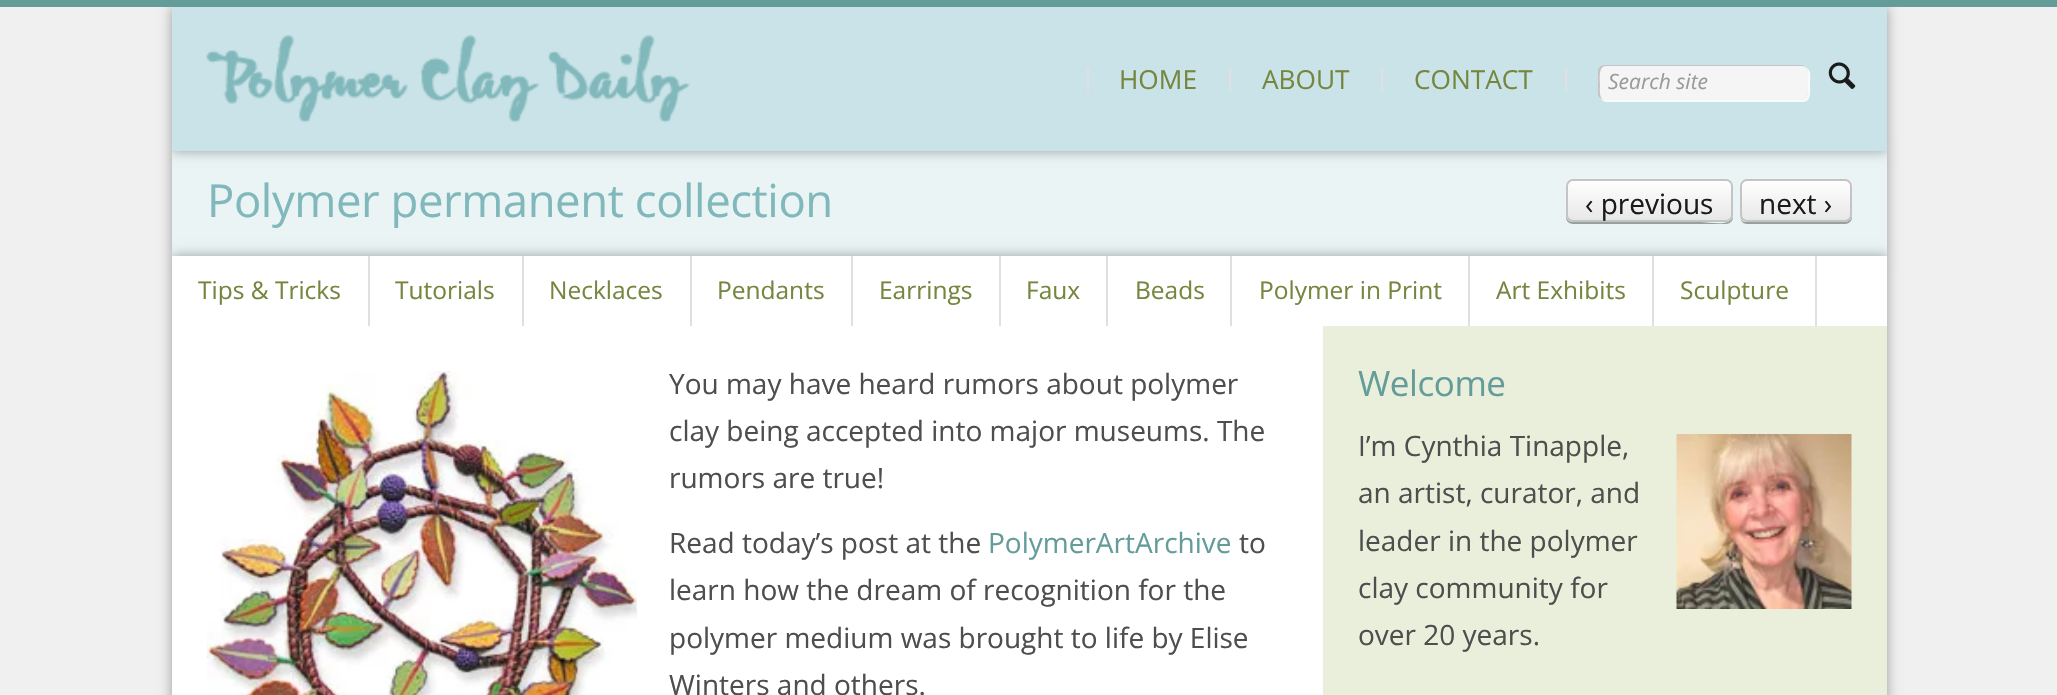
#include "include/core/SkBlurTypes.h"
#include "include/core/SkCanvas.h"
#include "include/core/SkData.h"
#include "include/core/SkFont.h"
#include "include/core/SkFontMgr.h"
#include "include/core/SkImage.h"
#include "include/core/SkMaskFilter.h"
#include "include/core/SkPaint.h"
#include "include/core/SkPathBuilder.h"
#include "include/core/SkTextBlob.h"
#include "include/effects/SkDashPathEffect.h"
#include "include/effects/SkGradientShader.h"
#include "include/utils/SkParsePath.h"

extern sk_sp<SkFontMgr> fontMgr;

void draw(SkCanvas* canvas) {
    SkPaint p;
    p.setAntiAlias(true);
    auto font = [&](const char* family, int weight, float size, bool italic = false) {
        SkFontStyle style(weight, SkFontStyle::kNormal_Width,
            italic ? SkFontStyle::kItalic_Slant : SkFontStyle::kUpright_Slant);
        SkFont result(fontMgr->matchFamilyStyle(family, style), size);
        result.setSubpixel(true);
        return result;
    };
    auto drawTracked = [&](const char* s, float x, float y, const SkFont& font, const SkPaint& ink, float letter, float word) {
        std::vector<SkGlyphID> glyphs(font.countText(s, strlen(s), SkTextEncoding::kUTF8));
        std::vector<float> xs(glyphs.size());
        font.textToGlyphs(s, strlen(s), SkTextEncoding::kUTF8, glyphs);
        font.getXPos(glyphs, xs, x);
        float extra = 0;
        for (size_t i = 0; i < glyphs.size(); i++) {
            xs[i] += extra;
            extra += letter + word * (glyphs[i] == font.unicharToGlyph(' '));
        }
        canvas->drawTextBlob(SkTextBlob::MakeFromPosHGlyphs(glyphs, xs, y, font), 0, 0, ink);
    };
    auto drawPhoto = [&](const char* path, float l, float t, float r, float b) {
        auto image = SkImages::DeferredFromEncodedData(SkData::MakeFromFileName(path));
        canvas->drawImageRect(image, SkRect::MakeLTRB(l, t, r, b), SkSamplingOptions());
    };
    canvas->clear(0xFFF0F0F0);
    p.setColor(0x59000000);
    p.setMaskFilter(SkMaskFilter::MakeBlur(kNormal_SkBlurStyle, 6));
    canvas->drawRect(SkRect::MakeLTRB(172, 151, 1887, 256), p);
    p.setMaskFilter(nullptr);
    p.setColor(0xFFEAF4F5);
    canvas->drawRect(SkRect::MakeLTRB(172, 151, 1887, 256), p);
    p.setColor(0x59000000);
    p.setMaskFilter(SkMaskFilter::MakeBlur(kNormal_SkBlurStyle, 6));
    canvas->drawRect(SkRect::MakeLTRB(172, 7, 1887, 151), p);
    p.setMaskFilter(nullptr);
    p.setColor(0xFF649C9A);
    canvas->drawRect(SkRect::MakeLTRB(0, 0, 2057, 7), p);
    p.setColor(0xFFCAE3E8);
    canvas->drawRect(SkRect::MakeLTRB(172, 7, 1887, 151), p);
    drawPhoto("media/1.png", 206, 35, 690, 123);
    p.setColor(0xFFE0E0E0);
    canvas->drawRect(SkRect::MakeLTRB(1087, 68, 1089, 91), p);
    auto font1 = font("Open Sans", 400, 26.25f);
    p.setColor(0xFF75863F);
    canvas->drawString("HOME", 1119, 89, font1, p);
    p.setColor(0xFFE0E0E0);
    canvas->drawRect(SkRect::MakeLTRB(1229, 68, 1231, 91), p);
    p.setColor(0xFF75863F);
    canvas->drawString("ABOUT", 1262, 89, font1, p);
    p.setColor(0xFFE0E0E0);
    canvas->drawRect(SkRect::MakeLTRB(1381, 68, 1383, 91), p);
    p.setColor(0xFF75863F);
    canvas->drawString("CONTACT", 1414, 89, font1, p);
    p.setColor(0xFFE0E0E0);
    canvas->drawRect(SkRect::MakeLTRB(1565, 68, 1567, 91), p);
    p.setColor(0xFFF7FBFC);
    canvas->drawPath(SkPathBuilder().moveTo(1601, 99).cubicTo(1602, 100, 1604, 102, 1606, 102).lineTo(1803, 102).cubicTo(1812, 102, 1810, 90, 1810, 84).cubicTo(1810, 80, 1812, 71, 1807, 68).cubicTo(1807, 69, 1808, 70, 1808, 72).lineTo(1808, 93).cubicTo(1808, 97, 1805, 100, 1801, 100).lineTo(1605, 100).cubicTo(1603, 100, 1602, 99, 1601, 99).close().detach(), p);
    p.setColor(0xFFF5F5F5);
    canvas->drawRoundRect(SkRect::MakeLTRB(1598, 65, 1808, 100), 7, 7, p);
    p.setColor(0x33000000);
    canvas->drawPath(SkPathBuilder().moveTo(1606, 66).lineTo(1802, 66).cubicTo(1804, 66, 1805, 67, 1806, 68).cubicTo(1805, 66, 1803, 65, 1801, 65).lineTo(1605, 65).cubicTo(1601, 65, 1598, 68, 1598, 72).lineTo(1598, 93).cubicTo(1598, 96, 1599, 98, 1602, 99).cubicTo(1599, 95, 1600, 89, 1600, 84).cubicTo(1600, 80, 1598, 66, 1606, 66).close().detach(), p);
    auto font2 = font("Open Sans", 400, 21, true);
    p.setColor(0xFF9A9A9A);
    canvas->drawString("Search site", 1608, 89, font2, p);
    drawPhoto("media/2.png", 1828, 62, 1856, 89);
    auto font3 = font("Open Sans", 400, 45.5f);
    p.setColor(0xFF81B8BB);
    drawTracked("Polymer permanent collection", 207, 217, font3, p, -0.45f, 0);
    p.setColor(0xFF989F9F);
    canvas->drawPath(SkPathBuilder().moveTo(1566, 185).lineTo(1566, 217).cubicTo(1566, 221, 1569, 224, 1573, 224).lineTo(1726, 224).cubicTo(1730, 224, 1733, 221, 1733, 217).lineTo(1733, 187).lineTo(1732, 184).lineTo(1732, 217).cubicTo(1730, 227, 1710, 222, 1700, 222).lineTo(1573, 222).cubicTo(1566, 222, 1566, 215, 1566, 210).close().detach(), p);
    canvas->save();
    canvas->clipPath(SkPathBuilder().moveTo(1573, 179).lineTo(1726, 179).cubicTo(1730, 179, 1733, 182, 1733, 186).lineTo(1733, 215).cubicTo(1733, 219, 1730, 222, 1726, 222).lineTo(1573, 222).cubicTo(1569, 222, 1566, 219, 1566, 215).lineTo(1566, 186).cubicTo(1566, 182, 1569, 179, 1573, 179).close().detach(), true);
    {
        const SkColor colors[] = {0xFFFFFFFF, 0xFFE7E7E7};
        const float stops[] = {0, 1};
        const SkPoint ends[] = {{1649, 180}, {1649, 221}};
        p.setShader(SkGradientShader::MakeLinear(ends, colors, stops, 2, SkTileMode::kClamp));
        p.setAlpha(255);
    }
    canvas->drawRect(SkRect::MakeLTRB(1566, 180, 1733, 221), p);
    canvas->restore();
    p.setStyle(SkPaint::kStroke_Style);
    p.setStrokeWidth(2);
    p.setShader(nullptr);
    p.setColor(0xFFC4C4C4);
    canvas->drawRoundRect(SkRect::MakeLTRB(1567, 180, 1732, 221), 6, 6, p);
    auto font4 = font("Open Sans", 400, 28);
    p.setStyle(SkPaint::kFill_Style);
    p.setColor(0xFF1B1B1B);
    canvas->drawString("‹ previous", 1585, 214, font4, p);
    p.setColor(0xFF989F9F);
    canvas->drawPath(SkPathBuilder().moveTo(1740, 218).cubicTo(1741, 221, 1743, 224, 1747, 224).lineTo(1845, 224).cubicTo(1849, 224, 1852, 221, 1852, 217).lineTo(1852, 187).lineTo(1851, 184).lineTo(1852, 205).cubicTo(1852, 211, 1853, 222, 1844, 222).lineTo(1744, 222).cubicTo(1742, 221, 1741, 220, 1740, 218).close().detach(), p);
    canvas->save();
    canvas->clipPath(SkPathBuilder().moveTo(1747, 179).lineTo(1845, 179).cubicTo(1849, 179, 1852, 182, 1852, 186).lineTo(1852, 215).cubicTo(1852, 219, 1849, 222, 1845, 222).lineTo(1747, 222).cubicTo(1743, 222, 1740, 219, 1740, 215).lineTo(1740, 186).cubicTo(1740, 182, 1743, 179, 1747, 179).close().detach(), true);
    {
        const SkColor colors[] = {0xFFFFFFFF, 0xFFE7E7E7};
        const float stops[] = {0, 1};
        const SkPoint ends[] = {{1796, 180}, {1796, 221}};
        p.setShader(SkGradientShader::MakeLinear(ends, colors, stops, 2, SkTileMode::kClamp));
        p.setAlpha(255);
    }
    canvas->drawRect(SkRect::MakeLTRB(1740, 180, 1852, 221), p);
    canvas->restore();
    p.setStyle(SkPaint::kStroke_Style);
    p.setShader(nullptr);
    p.setColor(0xFFC4C4C4);
    canvas->drawRoundRect(SkRect::MakeLTRB(1741, 180, 1851, 221), 6, 6, p);
    p.setStyle(SkPaint::kFill_Style);
    p.setColor(0xFF1B1B1B);
    canvas->drawString("next ›", 1759, 214, font4, p);
    p.setColor(0x59000000);
    p.setMaskFilter(SkMaskFilter::MakeBlur(kNormal_SkBlurStyle, 6));
    canvas->drawRect(SkRect::MakeLTRB(172, 256, 1887, 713), p);
    p.setMaskFilter(nullptr);
    p.setColor(0xFFFFFFFF);
    canvas->drawRect(SkRect::MakeLTRB(172, 256, 1887, 695), p);
    p.setColor(0xFFE0E0E0);
    canvas->drawRect(SkRect::MakeLTRB(368, 256, 370, 326), p);
    auto font5 = font("Open Sans", 400, 24.5f);
    p.setColor(0xFF75863F);
    canvas->drawString("Tips & Tricks", 198, 299, font5, p);
    p.setColor(0xFFE0E0E0);
    canvas->drawRect(SkRect::MakeLTRB(522, 256, 524, 326), p);
    p.setColor(0xFF75863F);
    canvas->drawString("Tutorials", 395, 299, font5, p);
    p.setColor(0xFFE0E0E0);
    canvas->drawRect(SkRect::MakeLTRB(690, 256, 692, 326), p);
    p.setColor(0xFF75863F);
    canvas->drawString("Necklaces", 549, 299, font5, p);
    p.setColor(0xFFE0E0E0);
    canvas->drawRect(SkRect::MakeLTRB(851, 256, 853, 326), p);
    p.setColor(0xFF75863F);
    canvas->drawString("Pendants", 717, 299, font5, p);
    p.setColor(0xFFE0E0E0);
    canvas->drawRect(SkRect::MakeLTRB(999, 256, 1001, 326), p);
    p.setColor(0xFF75863F);
    canvas->drawString("Earrings", 879, 299, font5, p);
    p.setColor(0xFFE0E0E0);
    canvas->drawRect(SkRect::MakeLTRB(1106, 256, 1108, 326), p);
    p.setColor(0xFF75863F);
    canvas->drawString("Faux", 1026, 299, font5, p);
    p.setColor(0xFFE0E0E0);
    canvas->drawRect(SkRect::MakeLTRB(1230, 256, 1232, 326), p);
    p.setColor(0xFF75863F);
    canvas->drawString("Beads", 1135, 299, font5, p);
    p.setColor(0xFFE0E0E0);
    canvas->drawRect(SkRect::MakeLTRB(1468, 256, 1470, 326), p);
    p.setColor(0xFF75863F);
    canvas->drawString("Polymer in Print", 1259, 299, font5, p);
    p.setColor(0xFFE0E0E0);
    canvas->drawRect(SkRect::MakeLTRB(1652, 256, 1654, 326), p);
    p.setColor(0xFF75863F);
    canvas->drawString("Art Exhibits", 1496, 299, font5, p);
    p.setColor(0xFFE0E0E0);
    canvas->drawRect(SkRect::MakeLTRB(1815, 256, 1817, 326), p);
    p.setColor(0xFF75863F);
    canvas->drawString("Sculpture", 1680, 299, font5, p);
    drawPhoto("media/3.png", 206, 371, 637, 695);
    p.setColor(0xFF4E4E4E);
    {
        const struct { const char* s; float x, y; } items[] = {
            {"You may have heard rumors about polymer", 669, 394},
            {"clay being accepted into major museums. The", 669, 441},
            {"rumors are true!", 669, 488},
            {"Read today’s post at the", 669, 553},
        };
        for (auto [s, x, y] : items) {
            canvas->drawString(s, x, y, font4, p);
        }
    }
    p.setColor(0xFF649C9A);
    canvas->drawString("PolymerArtArchive", 988, 553, font4, p);
    p.setColor(0xFF4E4E4E);
    {
        const struct { const char* s; float x, y; } items[] = {
            {"to", 1239, 553},
            {"learn how the dream of recognition for the", 669, 600},
            {"polymer medium was brought to life by Elise", 669, 648},
            {"Winters and others.", 669, 695},
        };
        for (auto [s, x, y] : items) {
            canvas->drawString(s, x, y, font4, p);
        }
    }
    p.setColor(0xFFEAEFDB);
    canvas->drawRect(SkRect::MakeLTRB(1323, 326, 1887, 695), p);
    auto font6 = font("Open Sans", 400, 35);
    p.setColor(0xFF649C9A);
    drawTracked("Welcome", 1358, 396, font6, p, -0.45f, 0);
    p.setColor(0xFF4E4E4E);
    canvas->drawString("I’m Cynthia Tinapple,", 1358, 456, font4, p);
    drawPhoto("media/4.png", 1676, 434, 1852, 609);
    {
        const struct { const char* s; float x, y; } items[] = {
            {"an artist, curator, and", 1358, 503},
            {"leader in the polymer", 1358, 551},
            {"clay community for", 1358, 598},
            {"over 20 years.", 1358, 645},
        };
        for (auto [s, x, y] : items) {
            canvas->drawString(s, x, y, font4, p);
        }
    }
}
